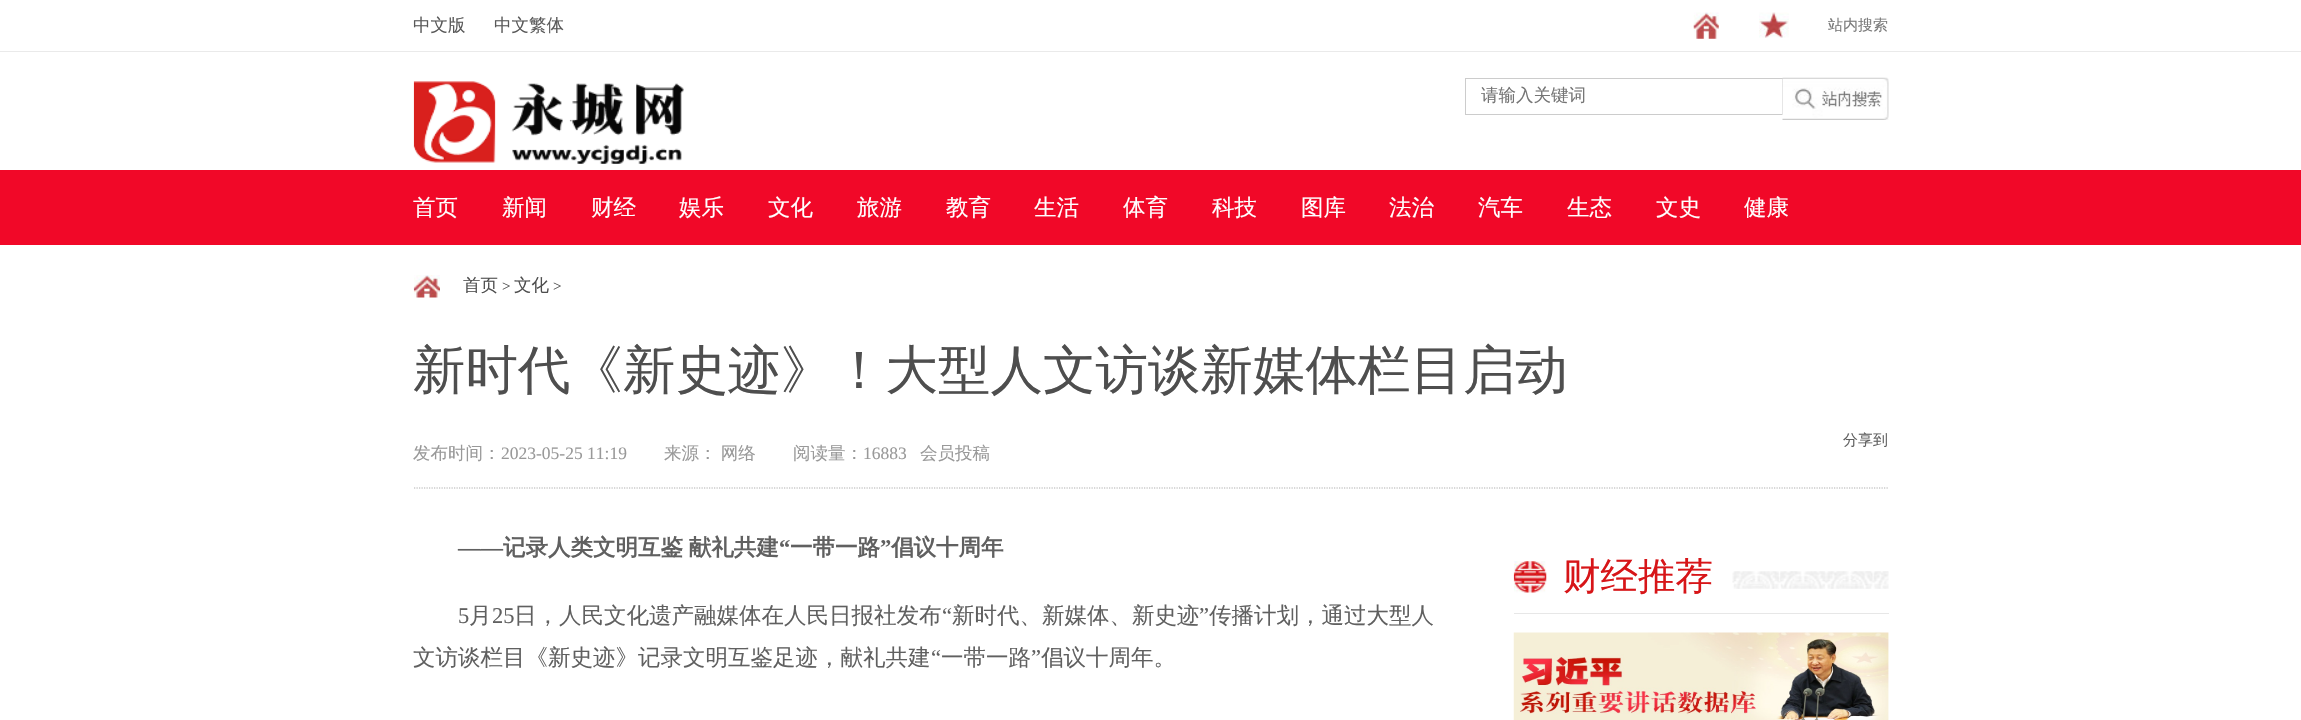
#include "include/core/SkBlurTypes.h"
#include "include/core/SkCanvas.h"
#include "include/core/SkData.h"
#include "include/core/SkFont.h"
#include "include/core/SkFontMgr.h"
#include "include/core/SkImage.h"
#include "include/core/SkMaskFilter.h"
#include "include/core/SkPaint.h"
#include "include/core/SkPathBuilder.h"
#include "include/core/SkTextBlob.h"
#include "include/effects/SkDashPathEffect.h"
#include "include/effects/SkGradientShader.h"
#include "include/utils/SkParsePath.h"

extern sk_sp<SkFontMgr> fontMgr;

void draw(SkCanvas* canvas) {
    SkPaint p;
    p.setAntiAlias(true);
    auto font = [&](const char* family, int weight, float size, bool italic = false) {
        SkFontStyle style(weight, SkFontStyle::kNormal_Width,
            italic ? SkFontStyle::kItalic_Slant : SkFontStyle::kUpright_Slant);
        SkFont result(fontMgr->matchFamilyStyle(family, style), size);
        result.setSubpixel(true);
        return result;
    };
    auto drawTracked = [&](const char* s, float x, float y, const SkFont& font, const SkPaint& ink, float letter, float word) {
        std::vector<SkGlyphID> glyphs(font.countText(s, strlen(s), SkTextEncoding::kUTF8));
        std::vector<float> xs(glyphs.size());
        font.textToGlyphs(s, strlen(s), SkTextEncoding::kUTF8, glyphs);
        font.getXPos(glyphs, xs, x);
        float extra = 0;
        for (size_t i = 0; i < glyphs.size(); i++) {
            xs[i] += extra;
            extra += letter + word * (glyphs[i] == font.unicharToGlyph(' '));
        }
        canvas->drawTextBlob(SkTextBlob::MakeFromPosHGlyphs(glyphs, xs, y, font), 0, 0, ink);
    };
    auto drawPhoto = [&](const char* path, float l, float t, float r, float b) {
        auto image = SkImages::DeferredFromEncodedData(SkData::MakeFromFileName(path));
        canvas->drawImageRect(image, SkRect::MakeLTRB(l, t, r, b), SkSamplingOptions());
    };
    canvas->clear(0xFFFFFFFF);
    p.setColor(0xFFEAEAEA);
    canvas->drawRect(SkRect::MakeLTRB(0, 51, 2301, 52), p);
    auto font1 = font("WenQuanYi Zen Hei", 500, 17.5f);
    p.setColor(0xFF595959);
    canvas->drawString("中文版", 413, 31, font1, p);
    canvas->drawString("中文繁体", 494, 31, font1, p);
    drawPhoto("media/1.png", 1693, 12, 1719, 39);
    drawPhoto("media/2.png", 1759, 12, 1789, 38);
    auto font2 = font("WenQuanYi Zen Hei", 500, 15);
    p.setColor(0xFF7B7B7B);
    canvas->drawString("站内搜索", 1828, 30, font2, p);
    drawPhoto("media/3.png", 413, 81, 684, 164);
    p.setStyle(SkPaint::kStroke_Style);
    p.setStrokeWidth(1);
    p.setColor(0xFFCCCCCC);
    canvas->drawRect(SkRect::MakeLTRB(1465.5f, 78.5f, 1782.5f, 114.5f), p);
    p.setStyle(SkPaint::kFill_Style);
    p.setColor(0xFF757575);
    canvas->drawString("请输入关键词", 1481, 101, font1, p);
    drawPhoto("media/4.png", 1782, 77, 1889, 120);
    p.setColor(0xFFF10828);
    canvas->drawRect(SkRect::MakeLTRB(0, 170, 2301, 245), p);
    auto font3 = font("WenQuanYi Zen Hei", 500, 22.5f);
    p.setColor(0xFFFFFFFF);
    {
        const struct { const char* s; float x, y; } items[] = {
            {"首页", 413, 215},
            {"新闻", 502, 215},
            {"财经", 591, 215},
            {"娱乐", 679, 215},
            {"文化", 768, 215},
            {"旅游", 857, 215},
            {"教育", 946, 215},
            {"生活", 1034, 215},
            {"体育", 1123, 215},
            {"科技", 1212, 215},
            {"图库", 1301, 215},
            {"法治", 1389, 215},
            {"汽车", 1478, 215},
            {"生态", 1567, 215},
            {"文史", 1656, 215},
            {"健康", 1744, 215},
        };
        for (auto [s, x, y] : items) {
            canvas->drawString(s, x, y, font3, p);
        }
    }
    drawPhoto("media/5.png", 413, 275, 440, 298);
    p.setColor(0xFF4E4E4E);
    canvas->drawString("首页", 463, 291, font1, p);
    auto font4 = font("Liberation Serif", 400, 15);
    canvas->drawString(">", 502, 291, font4, p);
    canvas->drawString("文化", 514, 291, font1, p);
    canvas->drawString(">", 553, 291, font4, p);
    p.setStyle(SkPaint::kStroke_Style);
    p.setStrokeWidth(1.2f);
    p.setColor(0xFFAFAFAF);
    p.setPathEffect(SkDashPathEffect::Make({{1.25f, 1.25f}}, 0));
    canvas->drawPath(SkPathBuilder().moveTo(414, 488).lineTo(1889, 488).detach(), p);
    p.setPathEffect(nullptr);
    auto font5 = font("WenQuanYi Zen Hei", 500, 52.5f);
    p.setStyle(SkPaint::kFill_Style);
    p.setColor(0xFF4E4E4E);
    canvas->drawString("新时代《新史迹》！大型人文访谈新媒体栏目启动", 413, 388, font5, p);
    p.setColor(0xFF606060);
    canvas->drawString("分享到", 1843, 445, font2, p);
    p.setColor(0xFF999999);
    canvas->drawString("发布时间：", 413, 459, font1, p);
    auto font6 = font("Liberation Serif", 400, 17.5f);
    canvas->drawString("2023-05-25 11:19", 501, 459, font6, p);
    drawTracked("来源： 网络", 664, 459, font1, p, 0, -1);
    canvas->drawString("阅读量：", 793, 459, font1, p);
    canvas->drawString("16883", 863, 459, font6, p);
    canvas->drawString("会员投稿", 920, 459, font1, p);
    auto font7 = font("Liberation Serif", 700, 22.5f);
    p.setColor(0xFF606060);
    canvas->drawString("——", 458, 555, font7, p);
    auto font8 = font("WenQuanYi Zen Hei", 700, 22.5f);
    drawTracked("记录人类文明互鉴 献礼共建", 503, 555, font8, p, 0, -1);
    canvas->drawString("“", 779, 555, font7, p);
    canvas->drawString("一带一路", 790, 555, font8, p);
    canvas->drawString("”", 880, 555, font7, p);
    canvas->drawString("倡议十周年", 891, 555, font8, p);
    auto font9 = font("Liberation Serif", 400, 22.5f);
    canvas->drawString("5", 458, 623, font9, p);
    canvas->drawString("月", 469, 623, font3, p);
    canvas->drawString("25", 492, 623, font9, p);
    canvas->drawString("日，人民文化遗产融媒体在人民日报社发布", 514, 623, font3, p);
    canvas->drawString("“", 942, 623, font9, p);
    canvas->drawString("新时代、新媒体、新史迹", 952, 623, font3, p);
    canvas->drawString("”", 1199, 623, font9, p);
    canvas->drawString("传播计划，通过大型人", 1209, 623, font3, p);
    canvas->drawString("文访谈栏目《新史迹》记录文明互鉴足迹，献礼共建", 413, 665, font3, p);
    canvas->drawString("“", 931, 665, font9, p);
    canvas->drawString("一带一路", 941, 665, font3, p);
    canvas->drawString("”", 1031, 665, font9, p);
    canvas->drawString("倡议十周年。", 1041, 665, font3, p);
    p.setColor(0xFFE7E7E7);
    canvas->drawRect(SkRect::MakeLTRB(1514, 613, 1889, 614), p);
    drawPhoto("media/6.png", 1513, 561, 1547, 593);
    auto font10 = font("WenQuanYi Zen Hei", 500, 37.5f);
    p.setColor(0xFFD71518);
    canvas->drawString("财经推荐", 1563, 589, font10, p);
    drawPhoto("media/7.png", 1732, 571, 1889, 589);
    drawPhoto("media/8.png", 1513, 632, 1889, 720);
}
